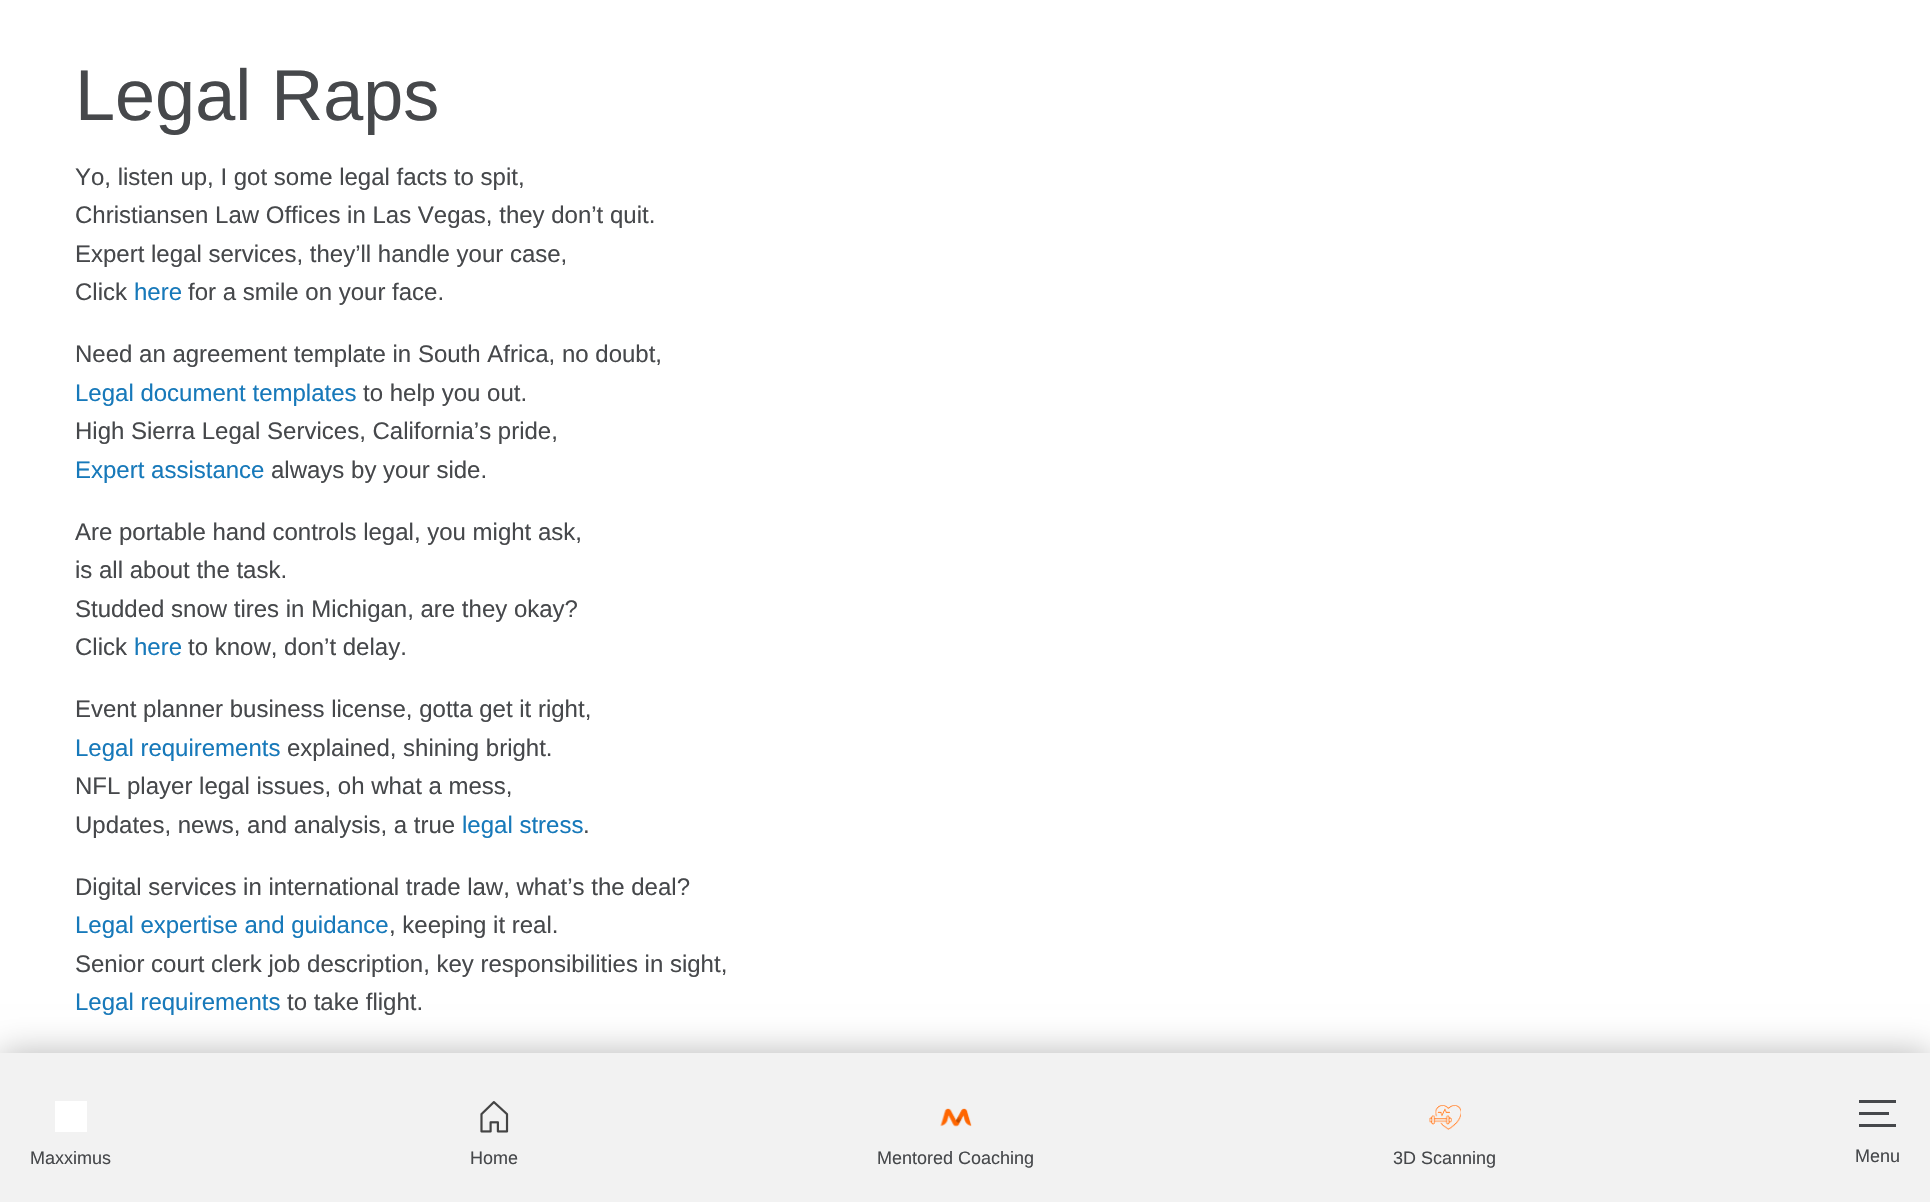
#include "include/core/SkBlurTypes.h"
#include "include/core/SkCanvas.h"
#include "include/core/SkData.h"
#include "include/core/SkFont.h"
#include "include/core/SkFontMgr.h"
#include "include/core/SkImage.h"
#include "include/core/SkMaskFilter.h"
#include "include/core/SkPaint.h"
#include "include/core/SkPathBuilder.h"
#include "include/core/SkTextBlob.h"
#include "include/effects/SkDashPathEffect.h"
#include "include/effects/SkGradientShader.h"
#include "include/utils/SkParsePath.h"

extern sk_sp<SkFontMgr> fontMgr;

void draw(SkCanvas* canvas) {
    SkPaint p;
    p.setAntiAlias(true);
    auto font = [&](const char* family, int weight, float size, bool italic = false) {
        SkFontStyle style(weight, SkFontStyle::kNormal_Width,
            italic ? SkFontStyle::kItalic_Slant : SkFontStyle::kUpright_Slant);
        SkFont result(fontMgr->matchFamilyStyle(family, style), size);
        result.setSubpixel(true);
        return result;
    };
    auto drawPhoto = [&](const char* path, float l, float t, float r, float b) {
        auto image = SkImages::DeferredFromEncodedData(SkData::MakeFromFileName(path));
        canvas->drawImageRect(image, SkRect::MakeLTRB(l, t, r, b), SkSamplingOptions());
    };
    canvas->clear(0xFFFFFFFF);
    auto font1 = font("Liberation Sans", 400, 72);
    p.setColor(0xFF46484B);
    canvas->drawString("Legal Raps", 75, 120, font1, p);
    auto font2 = font("Liberation Sans", 400, 24);
    {
        const struct { const char* s; float x, y; } items[] = {
            {"Yo, listen up, I got some legal facts to spit,", 75, 185},
            {"Christiansen Law Offices in Las Vegas, they don’t quit.", 75, 223},
            {"Expert legal services, they’ll handle your case,", 75, 262},
            {"Click", 75, 300},
        };
        for (auto [s, x, y] : items) {
            canvas->drawString(s, x, y, font2, p);
        }
    }
    p.setColor(0xFF1779BA);
    canvas->drawString("here", 134, 300, font2, p);
    p.setColor(0xFF46484B);
    canvas->drawString("for a smile on your face.", 188, 300, font2, p);
    canvas->drawString("Need an agreement template in South Africa, no doubt,", 75, 362, font2, p);
    p.setColor(0xFF1779BA);
    canvas->drawString("Legal document templates", 75, 401, font2, p);
    p.setColor(0xFF46484B);
    canvas->drawString("to help you out.", 363, 401, font2, p);
    canvas->drawString("High Sierra Legal Services, California’s pride,", 75, 439, font2, p);
    p.setColor(0xFF1779BA);
    canvas->drawString("Expert assistance", 75, 478, font2, p);
    p.setColor(0xFF46484B);
    {
        const struct { const char* s; float x, y; } items[] = {
            {"always by your side.", 271, 478},
            {"Are portable hand controls legal, you might ask,", 75, 540},
            {"is all about the task.", 75, 578},
            {"Studded snow tires in Michigan, are they okay?", 75, 617},
            {"Click", 75, 655},
        };
        for (auto [s, x, y] : items) {
            canvas->drawString(s, x, y, font2, p);
        }
    }
    p.setColor(0xFF1779BA);
    canvas->drawString("here", 134, 655, font2, p);
    p.setColor(0xFF46484B);
    canvas->drawString("to know, don’t delay.", 188, 655, font2, p);
    canvas->drawString("Event planner business license, gotta get it right,", 75, 717, font2, p);
    p.setColor(0xFF1779BA);
    canvas->drawString("Legal requirements", 75, 756, font2, p);
    p.setColor(0xFF46484B);
    {
        const struct { const char* s; float x, y; } items[] = {
            {"explained, shining bright.", 287, 756},
            {"NFL player legal issues, oh what a mess,", 75, 794},
            {"Updates, news, and analysis, a true", 75, 833},
        };
        for (auto [s, x, y] : items) {
            canvas->drawString(s, x, y, font2, p);
        }
    }
    p.setColor(0xFF1779BA);
    canvas->drawString("legal stress", 462, 833, font2, p);
    p.setColor(0xFF46484B);
    canvas->drawString(".", 583, 833, font2, p);
    canvas->drawString("Digital services in international trade law, what’s the deal?", 75, 895, font2, p);
    p.setColor(0xFF1779BA);
    canvas->drawString("Legal expertise and guidance", 75, 933, font2, p);
    p.setColor(0xFF46484B);
    canvas->drawString(", keeping it real.", 389, 933, font2, p);
    canvas->drawString("Senior court clerk job description, key responsibilities in sight,", 75, 972, font2, p);
    p.setColor(0xFF1779BA);
    canvas->drawString("Legal requirements", 75, 1010, font2, p);
    p.setColor(0xFF46484B);
    canvas->drawString("to take flight.", 287, 1010, font2, p);
    p.setColor(0xFFB7B7B7);
    p.setMaskFilter(SkMaskFilter::MakeBlur(kNormal_SkBlurStyle, 16.5f));
    canvas->drawRect(SkRect::MakeLTRB(0, 1053, 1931, 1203), p);
    p.setMaskFilter(nullptr);
    p.setColor(0xFFF2F2F2);
    canvas->drawRect(SkRect::MakeLTRB(0, 1053, 1930, 1202), p);
    p.setColor(0xFFFFFFFF);
    canvas->drawRect(SkRect::MakeLTRB(55, 1101, 87, 1132), p);
    auto font3 = font("Liberation Sans", 400, 18);
    p.setColor(0xFF46484B);
    canvas->drawString("Maxximus", 30, 1164, font3, p);
    drawPhoto("media/1.png", 480, 1101, 509, 1133);
    canvas->drawString("Home", 470, 1164, font3, p);
    drawPhoto("media/2.png", 940, 1108, 972, 1127);
    canvas->drawString("Mentored Coaching", 877, 1164, font3, p);
    drawPhoto("media/3.png", 1429, 1105, 1461, 1130);
    canvas->drawString("3D Scanning", 1393, 1164, font3, p);
    {
        const struct { float l, t, r, b; SkColor color; } items[] = {
            {1859, 1100, 1896, 1103, 0xFF46484B},
            {1859, 1112, 1889, 1115, 0xFF46484B},
            {1859, 1124, 1896, 1127, 0xFF46484B},
        };
        for (auto [l, t, r, b, color] : items) {
            p.setColor(color);
            canvas->drawRect(SkRect::MakeLTRB(l, t, r, b), p);
        }
    }
    canvas->drawString("Menu", 1855, 1162, font3, p);
}
